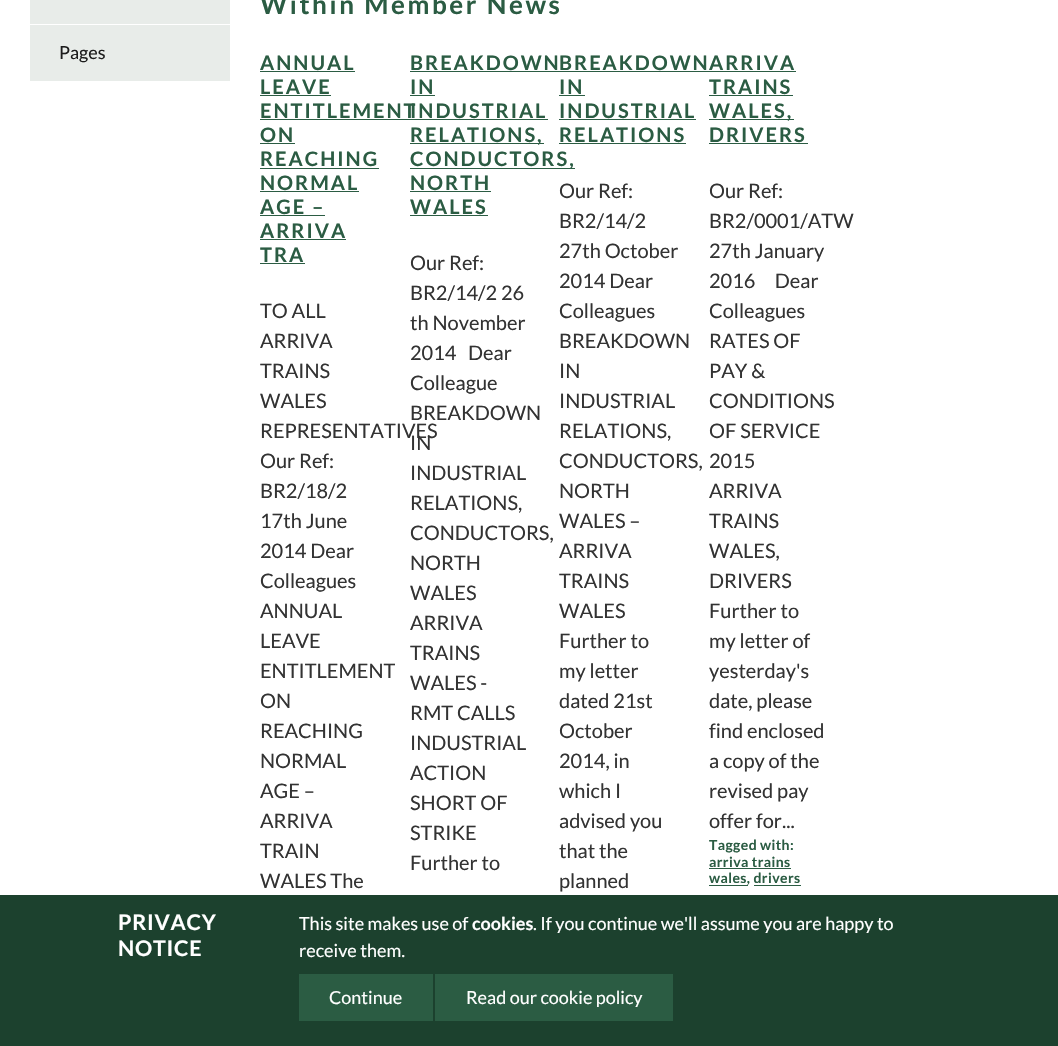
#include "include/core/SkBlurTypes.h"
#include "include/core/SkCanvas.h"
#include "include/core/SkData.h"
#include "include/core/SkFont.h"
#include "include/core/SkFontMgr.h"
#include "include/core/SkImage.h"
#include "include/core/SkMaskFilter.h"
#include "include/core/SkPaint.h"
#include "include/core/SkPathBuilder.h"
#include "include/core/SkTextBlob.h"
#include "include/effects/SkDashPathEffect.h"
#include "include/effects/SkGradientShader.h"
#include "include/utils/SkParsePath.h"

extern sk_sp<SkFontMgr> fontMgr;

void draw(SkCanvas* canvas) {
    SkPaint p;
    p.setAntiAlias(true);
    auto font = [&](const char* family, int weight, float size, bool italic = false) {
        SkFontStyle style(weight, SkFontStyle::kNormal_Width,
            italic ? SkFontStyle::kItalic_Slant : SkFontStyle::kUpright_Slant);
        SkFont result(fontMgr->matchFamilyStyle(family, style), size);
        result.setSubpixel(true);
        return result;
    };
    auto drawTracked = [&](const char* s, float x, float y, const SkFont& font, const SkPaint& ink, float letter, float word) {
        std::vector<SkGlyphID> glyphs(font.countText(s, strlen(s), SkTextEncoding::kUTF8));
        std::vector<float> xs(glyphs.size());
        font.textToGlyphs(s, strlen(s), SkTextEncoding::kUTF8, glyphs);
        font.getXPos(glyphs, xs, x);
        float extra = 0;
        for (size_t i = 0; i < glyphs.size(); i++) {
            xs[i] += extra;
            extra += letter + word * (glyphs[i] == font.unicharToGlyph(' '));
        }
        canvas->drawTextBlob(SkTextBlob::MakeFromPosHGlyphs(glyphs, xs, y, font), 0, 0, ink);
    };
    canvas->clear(0xFFFFFFFF);
    p.setColor(0xFFE8ECE9);
    canvas->drawRect(SkRect::MakeLTRB(30, 0, 230, 24), p);
    canvas->drawRect(SkRect::MakeLTRB(30, 25, 230, 81), p);
    auto font1 = font("Lato", 400, 18);
    p.setColor(0xFF1C1C1C);
    canvas->drawString("Pages", 59, 59, font1, p);
    auto font2 = font("Lato", 700, 26);
    p.setColor(0xFF2B5C43);
    drawTracked("Within Member News", 260, 14, font2, p, 2.6f, 0);
    auto font3 = font("Lato", 700, 20);
    drawTracked("ANNUAL", 260, 70, font3, p, 2, 0);
    canvas->drawRect(SkRect::MakeLTRB(260, 71, 355, 72), p);
    drawTracked("LEAVE", 260, 94, font3, p, 2, 0);
    canvas->drawRect(SkRect::MakeLTRB(260, 95, 331, 96), p);
    drawTracked("ENTITLEMENT", 260, 118, font3, p, 2, 0);
    canvas->drawRect(SkRect::MakeLTRB(260, 119, 548, 120), p);
    drawTracked("ON", 260, 142, font3, p, 2, 0);
    canvas->drawRect(SkRect::MakeLTRB(260, 143, 295, 144), p);
    drawTracked("REACHING", 260, 166, font3, p, 2, 0);
    canvas->drawRect(SkRect::MakeLTRB(260, 168, 379, 169), p);
    drawTracked("NORMAL", 260, 190, font3, p, 2, 0);
    canvas->drawRect(SkRect::MakeLTRB(260, 191, 359, 192), p);
    drawTracked("AGE –", 260, 214, font3, p, 2, 0);
    canvas->drawRect(SkRect::MakeLTRB(260, 215, 325, 216), p);
    drawTracked("ARRIVA", 260, 238, font3, p, 2, 0);
    canvas->drawRect(SkRect::MakeLTRB(260, 239, 346, 240), p);
    drawTracked("TRA", 260, 262, font3, p, 2, 0);
    canvas->drawRect(SkRect::MakeLTRB(260, 263, 305, 264), p);
    auto font4 = font("Lato", 400, 20);
    p.setColor(0xFF333333);
    {
        const struct { const char* s; float x, y; } items[] = {
            {"TO ALL", 260, 318},
            {"ARRIVA", 260, 348},
            {"TRAINS", 260, 378},
            {"WALES", 260, 408},
            {"REPRESENTATIVES", 260, 438},
            {"Our Ref:", 260, 468},
            {"BR2/18/2", 260, 498},
            {"17th June", 260, 528},
            {"2014 Dear", 260, 558},
            {"Colleagues", 260, 588},
            {"ANNUAL", 260, 618},
            {"LEAVE", 260, 648},
            {"ENTITLEMENT", 260, 678},
            {"ON", 260, 708},
            {"REACHING", 260, 738},
            {"NORMAL", 260, 768},
            {"AGE –", 260, 798},
            {"ARRIVA", 260, 828},
            {"TRAIN", 260, 858},
            {"WALES The", 260, 888},
        };
        for (auto [s, x, y] : items) {
            canvas->drawString(s, x, y, font4, p);
        }
    }
    p.setColor(0xFF2B5C43);
    drawTracked("BREAKDOWN", 410, 70, font3, p, 2, 0);
    canvas->drawRect(SkRect::MakeLTRB(410, 71, 796, 72), p);
    drawTracked("IN", 410, 94, font3, p, 2, 0);
    canvas->drawRect(SkRect::MakeLTRB(410, 95, 435, 96), p);
    drawTracked("INDUSTRIAL", 410, 118, font3, p, 2, 0);
    canvas->drawRect(SkRect::MakeLTRB(410, 143, 544, 144), p);
    drawTracked("RELATIONS,", 410, 142, font3, p, 2, 0);
    canvas->drawRect(SkRect::MakeLTRB(410, 168, 575, 169), p);
    drawTracked("CONDUCTORS,", 410, 166, font3, p, 2, 0);
    drawTracked("NORTH", 410, 190, font3, p, 2, 0);
    canvas->drawRect(SkRect::MakeLTRB(410, 191, 491, 192), p);
    drawTracked("WALES", 410, 214, font3, p, 2, 0);
    canvas->drawRect(SkRect::MakeLTRB(410, 215, 488, 216), p);
    p.setColor(0xFF333333);
    {
        const struct { const char* s; float x, y; } items[] = {
            {"Our Ref:", 410, 270},
            {"BR2/14/2 26", 410, 300},
            {"th November", 410, 330},
            {"2014", 410, 360},
            {"Dear", 468, 360},
            {"Colleague", 410, 390},
            {"BREAKDOWN", 410, 420},
            {"IN", 410, 450},
            {"INDUSTRIAL", 410, 480},
            {"RELATIONS,", 410, 510},
            {"CONDUCTORS,", 410, 540},
            {"NORTH", 410, 570},
            {"WALES", 410, 600},
            {"ARRIVA", 410, 630},
            {"TRAINS", 410, 660},
            {"WALES -", 410, 690},
            {"RMT CALLS", 410, 720},
            {"INDUSTRIAL", 410, 750},
            {"ACTION", 410, 780},
            {"SHORT OF", 410, 810},
            {"STRIKE", 410, 840},
            {"Further to", 410, 870},
        };
        for (auto [s, x, y] : items) {
            canvas->drawString(s, x, y, font4, p);
        }
    }
    p.setColor(0xFF2B5C43);
    drawTracked("BREAKDOWN", 559, 70, font3, p, 2, 0);
    drawTracked("IN", 559, 94, font3, p, 2, 0);
    canvas->drawRect(SkRect::MakeLTRB(559, 95, 585, 96), p);
    drawTracked("INDUSTRIAL", 559, 118, font3, p, 2, 0);
    canvas->drawRect(SkRect::MakeLTRB(559, 119, 696, 120), p);
    drawTracked("RELATIONS", 559, 142, font3, p, 2, 0);
    canvas->drawRect(SkRect::MakeLTRB(559, 143, 686, 144), p);
    p.setColor(0xFF333333);
    {
        const struct { const char* s; float x, y; } items[] = {
            {"Our Ref:", 559, 198},
            {"BR2/14/2", 559, 228},
            {"27th October", 559, 258},
            {"2014 Dear", 559, 288},
            {"Colleagues", 559, 318},
            {"BREAKDOWN", 559, 348},
            {"IN", 559, 378},
            {"INDUSTRIAL", 559, 408},
            {"RELATIONS,", 559, 438},
            {"CONDUCTORS,", 559, 468},
            {"NORTH", 559, 498},
            {"WALES –", 559, 528},
            {"ARRIVA", 559, 558},
            {"TRAINS", 559, 588},
            {"WALES", 559, 618},
            {"Further to", 559, 648},
            {"my letter", 559, 678},
            {"dated 21st", 559, 708},
            {"October", 559, 738},
            {"2014, in", 559, 768},
            {"which I", 559, 798},
            {"advised you", 559, 828},
            {"that the", 559, 858},
            {"planned", 559, 888},
        };
        for (auto [s, x, y] : items) {
            canvas->drawString(s, x, y, font4, p);
        }
    }
    p.setColor(0xFF2B5C43);
    drawTracked("ARRIVA", 709, 70, font3, p, 2, 0);
    drawTracked("TRAINS", 709, 94, font3, p, 2, 0);
    canvas->drawRect(SkRect::MakeLTRB(709, 95, 793, 96), p);
    canvas->drawRect(SkRect::MakeLTRB(709, 119, 794, 120), p);
    drawTracked("WALES,", 709, 118, font3, p, 2, 0);
    drawTracked("DRIVERS", 709, 142, font3, p, 2, 0);
    canvas->drawRect(SkRect::MakeLTRB(709, 143, 808, 144), p);
    p.setColor(0xFF333333);
    {
        const struct { const char* s; float x, y; } items[] = {
            {"Our Ref:", 709, 198},
            {"BR2/0001/ATW", 709, 228},
            {"27th January", 709, 258},
            {"2016     Dear", 709, 288},
            {"Colleagues", 709, 318},
            {"RATES OF", 709, 348},
            {"PAY &", 709, 378},
            {"CONDITIONS", 709, 408},
            {"OF SERVICE", 709, 438},
            {"2015", 709, 468},
            {"ARRIVA", 709, 498},
            {"TRAINS", 709, 528},
            {"WALES,", 709, 558},
            {"DRIVERS", 709, 588},
            {"Further to", 709, 618},
            {"my letter of", 709, 648},
            {"yesterday's", 709, 678},
            {"date, please", 709, 708},
            {"find enclosed", 709, 738},
            {"a copy of the", 709, 768},
            {"revised pay", 709, 798},
            {"offer for...", 709, 828},
        };
        for (auto [s, x, y] : items) {
            canvas->drawString(s, x, y, font4, p);
        }
    }
    auto font5 = font("Lato", 700, 14);
    p.setColor(0xFF2B5C43);
    drawTracked("Tagged with:", 709, 850, font5, p, 0.4f, 0);
    drawTracked("arriva trains", 709, 867, font5, p, 0.4f, 0);
    canvas->drawRect(SkRect::MakeLTRB(709, 868, 791, 869), p);
    drawTracked("wales, drivers", 709, 883, font5, p, 0.4f, 0);
    {
        const struct { float l, t, r, b; SkColor color; } items[] = {
            {709, 885, 748, 886, 0xFF2B5C43},
            {754, 885, 801, 886, 0xFF2B5C43},
            {0, 895, 1058, 1046, 0xFF1C412E},
        };
        for (auto [l, t, r, b, color] : items) {
            p.setColor(color);
            canvas->drawRect(SkRect::MakeLTRB(l, t, r, b), p);
        }
    }
    auto font6 = font("Lato", 700, 21.5f);
    p.setColor(0xFFFFFFFF);
    drawTracked("PRIVACY", 118, 930, font6, p, 0.75f, 0);
    drawTracked("NOTICE", 118, 956, font6, p, 0.75f, 0);
    canvas->drawString("This site makes use of", 299, 930, font1, p);
    auto font7 = font("Lato", 700, 18);
    canvas->drawString("cookies", 472, 930, font7, p);
    canvas->drawString(". If you continue we'll assume you are happy to", 533, 930, font1, p);
    canvas->drawString("receive them.", 299, 957, font1, p);
    p.setColor(0xFF2B5C43);
    canvas->drawRect(SkRect::MakeLTRB(299, 974, 433, 1021), p);
    p.setColor(0xFFFFFFFF);
    canvas->drawString("Continue", 329, 1004, font1, p);
    p.setColor(0xFF2B5C43);
    canvas->drawRect(SkRect::MakeLTRB(435, 974, 673, 1021), p);
    p.setColor(0xFFFFFFFF);
    canvas->drawString("Read our cookie policy", 466, 1004, font1, p);
}
